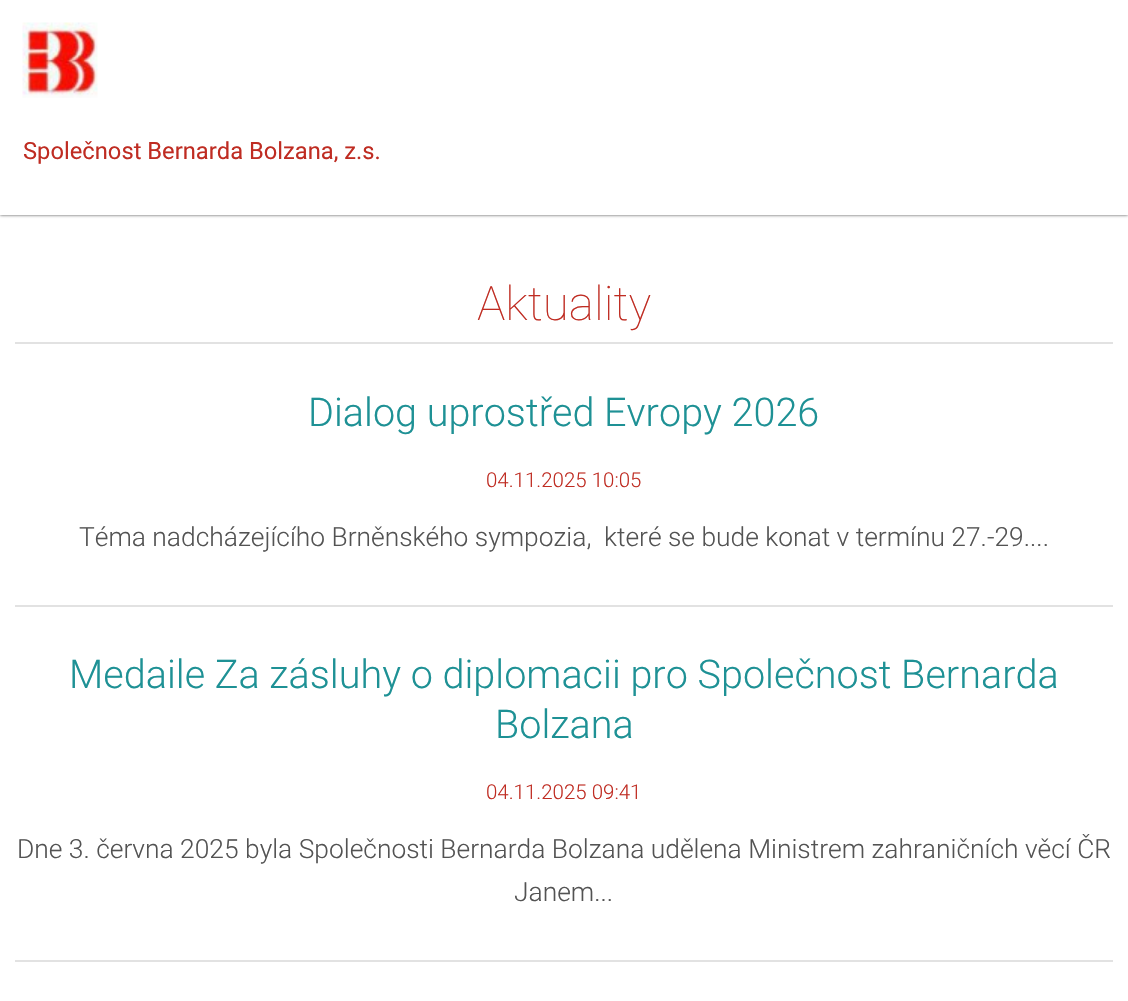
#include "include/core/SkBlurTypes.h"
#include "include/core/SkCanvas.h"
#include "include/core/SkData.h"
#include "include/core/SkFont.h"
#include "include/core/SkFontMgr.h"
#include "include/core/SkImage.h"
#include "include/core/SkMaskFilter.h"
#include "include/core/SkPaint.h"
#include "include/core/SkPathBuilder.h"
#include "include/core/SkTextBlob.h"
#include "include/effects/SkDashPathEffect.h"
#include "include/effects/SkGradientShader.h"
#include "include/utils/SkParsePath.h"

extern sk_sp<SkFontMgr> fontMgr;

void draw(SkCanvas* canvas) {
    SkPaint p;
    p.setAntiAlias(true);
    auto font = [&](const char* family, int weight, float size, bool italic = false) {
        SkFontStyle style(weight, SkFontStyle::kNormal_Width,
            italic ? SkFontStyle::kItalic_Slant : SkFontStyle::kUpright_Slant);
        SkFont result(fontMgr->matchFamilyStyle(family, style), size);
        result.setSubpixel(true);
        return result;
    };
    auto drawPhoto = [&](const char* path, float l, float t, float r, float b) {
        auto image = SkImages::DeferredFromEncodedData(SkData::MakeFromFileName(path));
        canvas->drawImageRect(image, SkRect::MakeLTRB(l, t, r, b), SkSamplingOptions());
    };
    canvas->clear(0xFFFFFFFF);
    p.setColor(0xFF4C4C4C);
    p.setMaskFilter(SkMaskFilter::MakeBlur(kNormal_SkBlurStyle, 1.5f));
    canvas->drawRect(SkRect::MakeLTRB(0, 0, 1128, 215), p);
    p.setMaskFilter(nullptr);
    p.setColor(0xFFFFFFFF);
    canvas->drawRect(SkRect::MakeLTRB(0, 0, 1128, 215), p);
    drawPhoto("media/1.png", 22, 22, 98, 98);
    auto font1 = font("Roboto", 400, 23.75f);
    p.setColor(0xFFBF2C22);
    canvas->drawString("Společnost Bernarda Bolzana, z.s.", 23, 159, font1, p);
    p.setColor(0xFFE2E2E2);
    canvas->drawRect(SkRect::MakeLTRB(15, 342, 1113, 344), p);
    auto font2 = font("Roboto", 100, 47.5f);
    p.setColor(0xFFBF2C22);
    canvas->drawString("Aktuality", 477, 320, font2, p);
    p.setColor(0xFFE2E2E2);
    canvas->drawRect(SkRect::MakeLTRB(15, 605, 1113, 607), p);
    auto font3 = font("Roboto", 300, 39.6f);
    p.setColor(0xFF1E9195);
    canvas->drawString("Dialog uprostřed Evropy 2026", 308, 426, font3, p);
    auto font4 = font("Roboto", 300, 20.5f);
    p.setColor(0xFFBF2C22);
    canvas->drawString("04.11.2025 10:05", 486, 487, font4, p);
    auto font5 = font("Roboto", 300, 26.4f);
    p.setColor(0xFF535353);
    canvas->drawString("Téma nadcházejícího Brněnského sympozia,", 79, 546, font5, p);
    canvas->drawString("které se bude konat v termínu 27.-29....", 604, 546, font5, p);
    p.setColor(0xFFE2E2E2);
    canvas->drawRect(SkRect::MakeLTRB(15, 960, 1113, 962), p);
    p.setColor(0xFF1E9195);
    canvas->drawString("Medaile Za zásluhy o diplomacii pro Společnost Bernarda", 69, 688, font3, p);
    canvas->drawString("Bolzana", 495, 738, font3, p);
    p.setColor(0xFFBF2C22);
    canvas->drawString("04.11.2025 09:41", 486, 799, font4, p);
    p.setColor(0xFF535353);
    canvas->drawString("Dne 3. června 2025 byla Společnosti Bernarda Bolzana udělena Ministrem zahraničních věcí ČR", 17, 858, font5, p);
    canvas->drawString("Janem...", 514, 901, font5, p);
}
